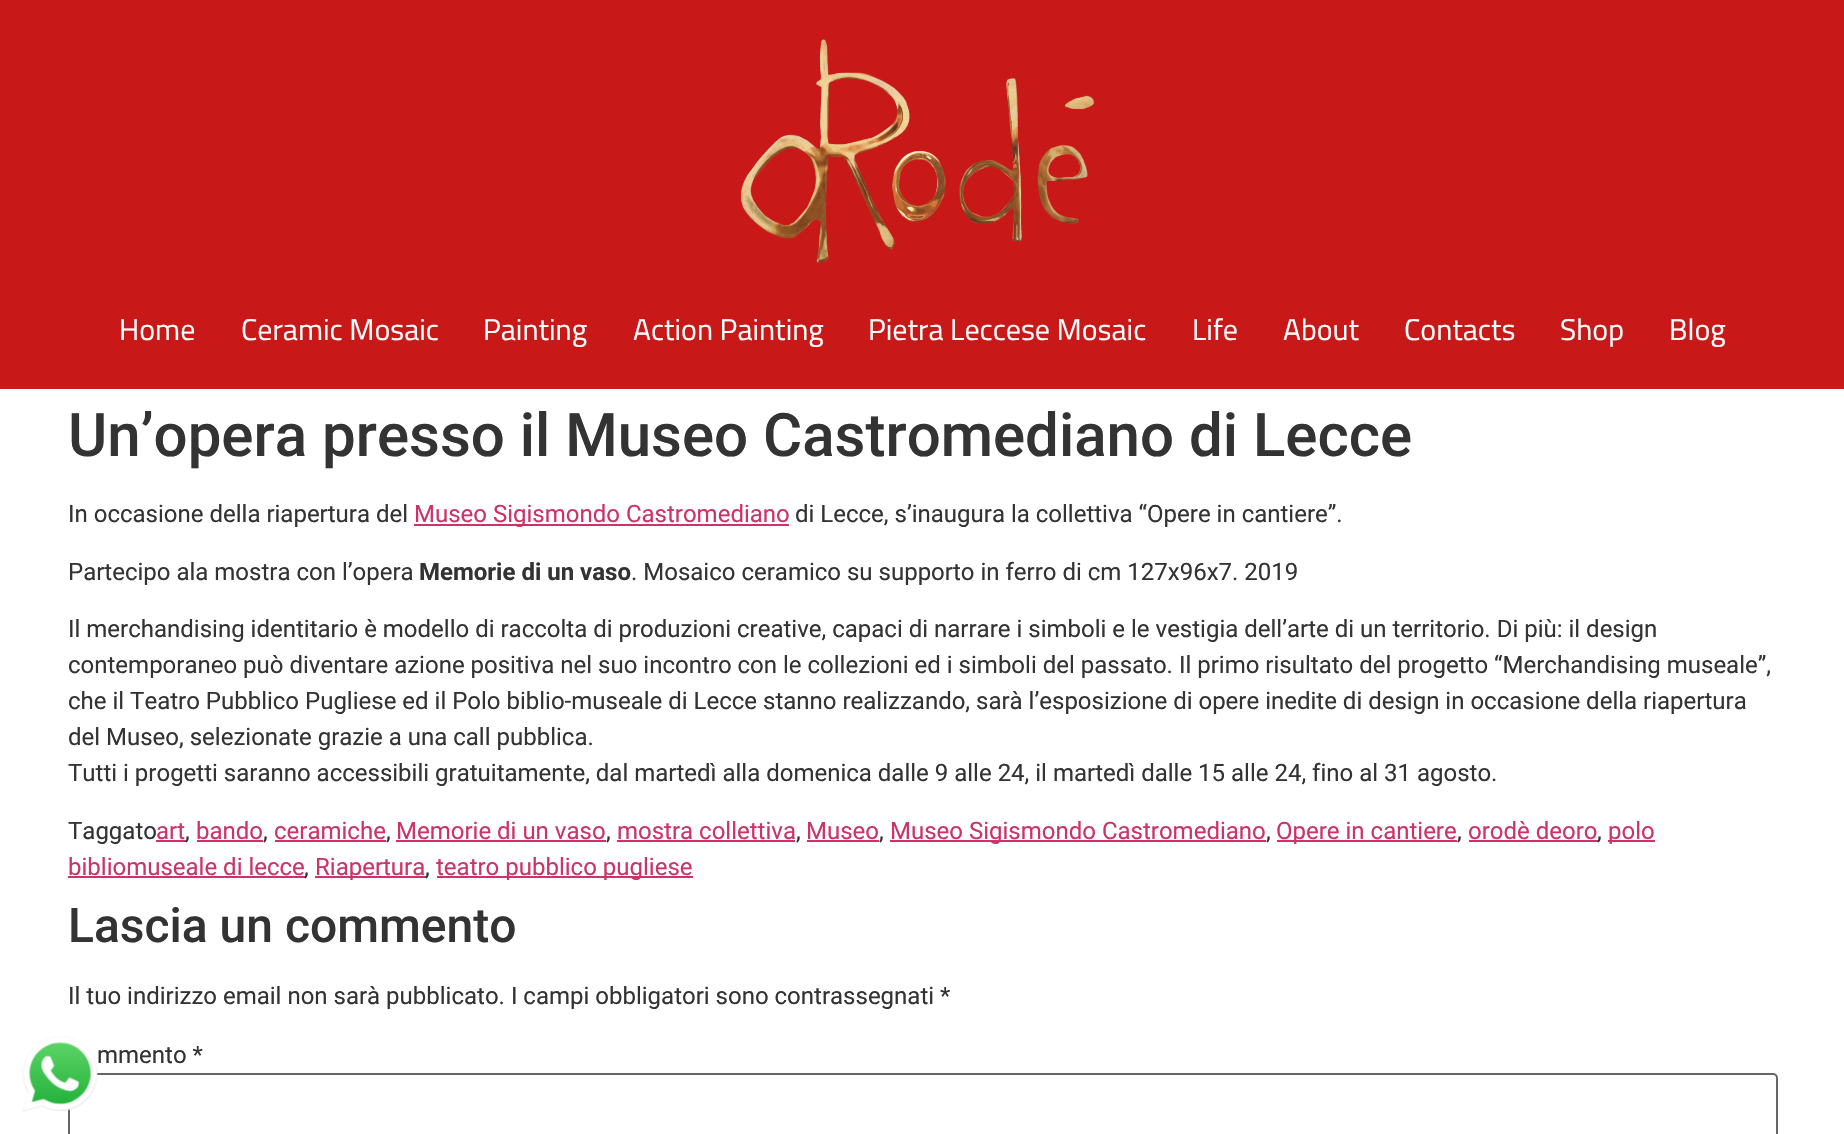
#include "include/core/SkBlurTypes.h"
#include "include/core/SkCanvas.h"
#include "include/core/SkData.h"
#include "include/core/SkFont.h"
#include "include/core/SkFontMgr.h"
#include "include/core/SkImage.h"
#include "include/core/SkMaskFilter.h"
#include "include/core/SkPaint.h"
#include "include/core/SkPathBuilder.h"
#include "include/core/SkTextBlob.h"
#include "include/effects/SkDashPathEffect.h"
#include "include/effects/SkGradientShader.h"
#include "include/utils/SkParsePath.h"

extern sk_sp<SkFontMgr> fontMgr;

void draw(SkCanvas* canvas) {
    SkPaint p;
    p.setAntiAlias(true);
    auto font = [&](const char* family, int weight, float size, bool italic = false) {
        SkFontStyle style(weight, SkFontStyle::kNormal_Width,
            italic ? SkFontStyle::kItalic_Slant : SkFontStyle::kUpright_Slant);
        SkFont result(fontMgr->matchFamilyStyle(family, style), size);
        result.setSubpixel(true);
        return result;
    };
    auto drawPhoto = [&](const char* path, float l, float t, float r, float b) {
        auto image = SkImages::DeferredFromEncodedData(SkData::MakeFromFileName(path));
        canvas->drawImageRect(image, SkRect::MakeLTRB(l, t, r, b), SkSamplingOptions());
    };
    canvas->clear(0xFFFFFFFF);
    p.setColor(0xFFC81818);
    canvas->drawRect(SkRect::MakeLTRB(0, 0, 1844, 389), p);
    drawPhoto("media/1.png", 740, 39, 1095, 263);
    auto font1 = font("Titillium Web", 400, 30);
    p.setColor(0xFFFFFFFF);
    {
        const struct { const char* s; float x, y; } items[] = {
            {"Home", 119, 340},
            {"Ceramic Mosaic", 241, 340},
            {"Painting", 483, 340},
            {"Action Painting", 633, 340},
            {"Pietra Leccese Mosaic", 868, 340},
            {"Life", 1192, 340},
            {"About", 1283, 340},
            {"Contacts", 1404, 340},
            {"Shop", 1560, 340},
            {"Blog", 1669, 340},
        };
        for (auto [s, x, y] : items) {
            canvas->drawString(s, x, y, font1, p);
        }
    }
    auto font2 = font("Roboto", 500, 60);
    p.setColor(0xFF333333);
    canvas->drawString("Un’opera presso il Museo Castromediano di Lecce", 68, 456, font2, p);
    auto font3 = font("Roboto", 400, 24);
    canvas->drawString("In occasione della riapertura del", 68, 522, font3, p);
    p.setColor(0xFFCC3366);
    canvas->drawRect(SkRect::MakeLTRB(414, 524, 789, 526), p);
    canvas->drawString("Museo Sigismondo Castromediano", 414, 522, font3, p);
    p.setColor(0xFF333333);
    canvas->drawString("di Lecce, s’inaugura la collettiva “Opere in cantiere”.", 795, 522, font3, p);
    canvas->drawString("Partecipo ala mostra con l’opera", 68, 580, font3, p);
    auto font4 = font("Roboto", 700, 24);
    canvas->drawString("Memorie di un vaso", 419, 580, font4, p);
    {
        const struct { const char* s; float x, y; } items[] = {
            {". Mosaico ceramico su supporto in ferro di cm 127x96x7. 2019", 631, 580},
            {"Il merchandising identitario è modello di raccolta di produzioni creative, capaci di narrare i simboli e le vestigia dell’arte di un territorio. Di più: il design", 68, 637},
            {"contemporaneo può diventare azione positiva nel suo incontro con le collezioni ed i simboli del passato. Il primo risultato del progetto “Merchandising museale”,", 68, 673},
            {"che il Teatro Pubblico Pugliese ed il Polo biblio-museale di Lecce stanno realizzando, sarà l’esposizione di opere inedite di design in occasione della riapertura", 68, 709},
            {"del Museo, selezionate grazie a una call pubblica.", 68, 745},
            {"Tutti i progetti saranno accessibili gratuitamente, dal martedì alla domenica dalle 9 alle 24, il martedì dalle 15 alle 24, fino al 31 agosto.", 68, 781},
            {"Taggato", 68, 839},
        };
        for (auto [s, x, y] : items) {
            canvas->drawString(s, x, y, font3, p);
        }
    }
    p.setColor(0xFFCC3366);
    canvas->drawString("art", 156, 839, font3, p);
    canvas->drawRect(SkRect::MakeLTRB(156, 840, 186, 842), p);
    p.setColor(0xFF333333);
    canvas->drawString(",", 185, 839, font3, p);
    p.setColor(0xFFCC3366);
    canvas->drawString("bando", 196, 839, font3, p);
    p.setColor(0xFF333333);
    canvas->drawString(",", 263, 839, font3, p);
    p.setColor(0xFFCC3366);
    canvas->drawRect(SkRect::MakeLTRB(197, 840, 263, 842), p);
    canvas->drawString("ceramiche", 274, 839, font3, p);
    p.setColor(0xFF333333);
    canvas->drawString(",", 386, 839, font3, p);
    p.setColor(0xFFCC3366);
    canvas->drawRect(SkRect::MakeLTRB(275, 840, 386, 842), p);
    canvas->drawString("Memorie di un vaso", 396, 839, font3, p);
    p.setColor(0xFF333333);
    canvas->drawString(",", 606, 839, font3, p);
    p.setColor(0xFFCC3366);
    canvas->drawRect(SkRect::MakeLTRB(396, 840, 606, 842), p);
    canvas->drawString("mostra collettiva", 617, 839, font3, p);
    p.setColor(0xFF333333);
    canvas->drawString(",", 796, 839, font3, p);
    p.setColor(0xFFCC3366);
    canvas->drawRect(SkRect::MakeLTRB(617, 840, 795, 842), p);
    canvas->drawString("Museo", 806, 839, font3, p);
    p.setColor(0xFF333333);
    canvas->drawString(",", 879, 839, font3, p);
    p.setColor(0xFFCC3366);
    canvas->drawRect(SkRect::MakeLTRB(807, 840, 879, 842), p);
    canvas->drawRect(SkRect::MakeLTRB(890, 840, 1266, 842), p);
    canvas->drawString("Museo Sigismondo Castromediano", 890, 839, font3, p);
    p.setColor(0xFF333333);
    canvas->drawString(",", 1266, 839, font3, p);
    p.setColor(0xFFCC3366);
    canvas->drawRect(SkRect::MakeLTRB(1277, 840, 1457, 842), p);
    canvas->drawString("Opere in cantiere", 1276, 839, font3, p);
    p.setColor(0xFF333333);
    canvas->drawString(",", 1457, 839, font3, p);
    p.setColor(0xFFCC3366);
    canvas->drawString("orodè deoro", 1468, 839, font3, p);
    canvas->drawRect(SkRect::MakeLTRB(1469, 840, 1598, 842), p);
    p.setColor(0xFF333333);
    canvas->drawString(",", 1597, 839, font3, p);
    p.setColor(0xFFCC3366);
    canvas->drawRect(SkRect::MakeLTRB(1608, 840, 1655, 842), p);
    canvas->drawString("polo", 1608, 839, font3, p);
    canvas->drawString("bibliomuseale di lecce", 68, 875, font3, p);
    canvas->drawRect(SkRect::MakeLTRB(68, 876, 305, 878), p);
    p.setColor(0xFF333333);
    canvas->drawString(",", 304, 875, font3, p);
    p.setColor(0xFFCC3366);
    canvas->drawRect(SkRect::MakeLTRB(315, 876, 426, 878), p);
    canvas->drawString("Riapertura", 315, 875, font3, p);
    p.setColor(0xFF333333);
    canvas->drawString(",", 425, 875, font3, p);
    p.setColor(0xFFCC3366);
    canvas->drawRect(SkRect::MakeLTRB(437, 876, 693, 878), p);
    canvas->drawString("teatro pubblico pugliese", 436, 875, font3, p);
    auto font5 = font("Roboto", 500, 48);
    p.setColor(0xFF333333);
    canvas->drawString("Lascia un commento", 68, 942, font5, p);
    canvas->drawString("Il tuo indirizzo email non sarà pubblicato. I campi obbligatori sono contrassegnati *", 68, 1004, font3, p);
    canvas->drawString("mmento *", 97, 1063, font3, p);
    p.setStyle(SkPaint::kStroke_Style);
    p.setStrokeWidth(2);
    p.setColor(0xFF666666);
    canvas->drawRoundRect(SkRect::MakeLTRB(69, 1074, 1777, 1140), 4, 4, p);
    drawPhoto("media/2.png", 22, 1036, 98, 1112);
}
